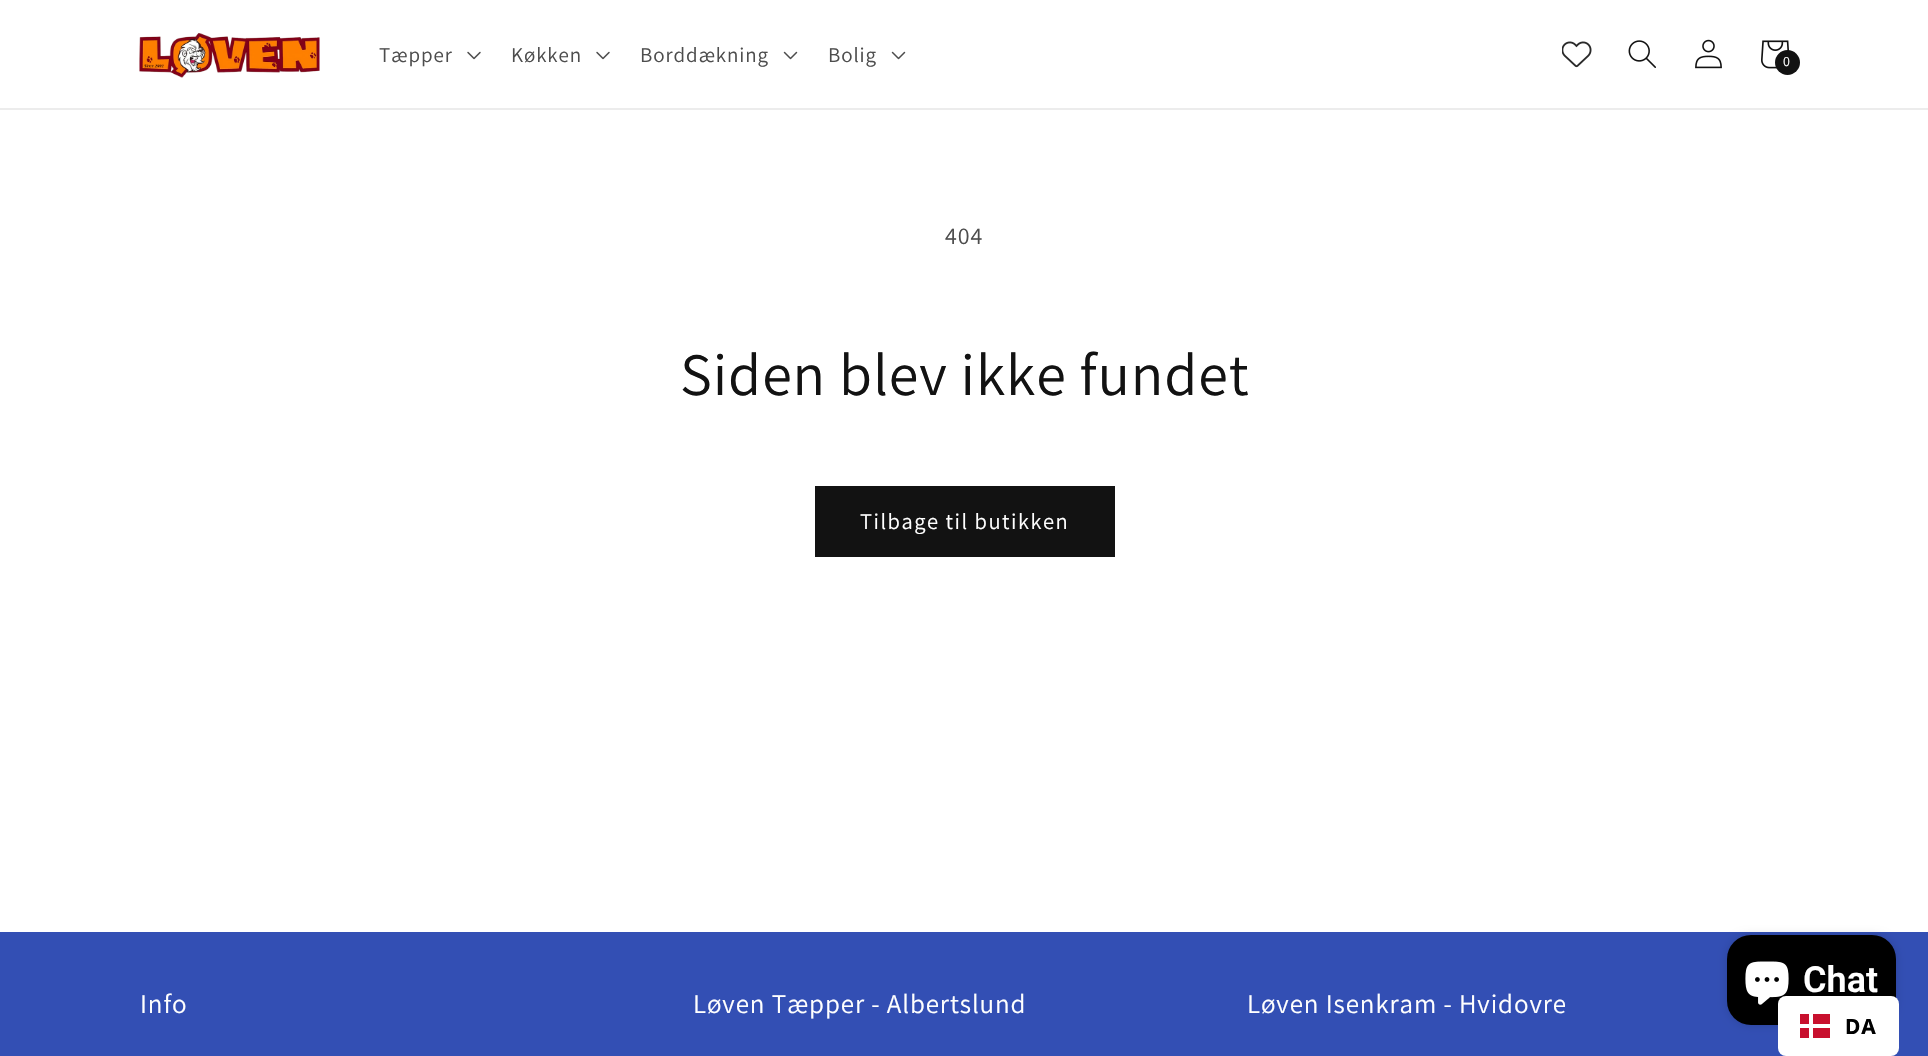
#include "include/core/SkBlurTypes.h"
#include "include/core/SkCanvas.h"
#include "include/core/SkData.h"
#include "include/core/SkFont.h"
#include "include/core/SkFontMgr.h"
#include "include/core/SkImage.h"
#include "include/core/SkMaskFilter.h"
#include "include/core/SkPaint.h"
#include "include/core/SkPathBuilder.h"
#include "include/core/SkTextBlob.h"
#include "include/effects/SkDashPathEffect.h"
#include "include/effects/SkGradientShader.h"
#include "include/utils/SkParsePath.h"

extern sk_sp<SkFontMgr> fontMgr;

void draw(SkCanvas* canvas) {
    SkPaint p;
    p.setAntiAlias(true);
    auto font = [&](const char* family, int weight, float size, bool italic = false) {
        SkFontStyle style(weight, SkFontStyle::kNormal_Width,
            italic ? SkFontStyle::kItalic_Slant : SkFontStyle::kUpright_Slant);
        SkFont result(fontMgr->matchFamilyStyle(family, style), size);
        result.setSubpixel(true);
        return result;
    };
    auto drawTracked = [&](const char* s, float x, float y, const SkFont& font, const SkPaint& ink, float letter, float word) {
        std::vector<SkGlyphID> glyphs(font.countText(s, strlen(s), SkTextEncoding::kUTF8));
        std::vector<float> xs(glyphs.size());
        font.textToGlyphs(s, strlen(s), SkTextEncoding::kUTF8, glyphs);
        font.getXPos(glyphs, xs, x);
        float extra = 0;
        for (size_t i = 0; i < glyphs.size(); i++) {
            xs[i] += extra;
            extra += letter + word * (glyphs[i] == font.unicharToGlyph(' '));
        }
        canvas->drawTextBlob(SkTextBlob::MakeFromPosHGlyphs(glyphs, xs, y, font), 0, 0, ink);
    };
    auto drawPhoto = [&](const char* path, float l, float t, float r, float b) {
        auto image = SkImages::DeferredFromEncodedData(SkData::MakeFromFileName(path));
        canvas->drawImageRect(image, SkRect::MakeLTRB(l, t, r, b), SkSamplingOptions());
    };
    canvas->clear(0xFFFFFFFF);
    p.setColor(0xFFECECEC);
    canvas->drawRect(SkRect::MakeLTRB(0, 108, 1928, 110), p);
    drawPhoto("media/1.png", 139, 33, 320, 78);
    auto font1 = font("Assistant", 400, 21);
    p.setColor(0xFF4D4D4D);
    drawTracked("Tæpper", 379, 62, font1, p, 0.9f, 0);
    drawPhoto("media/2.png", 467, 51, 481, 60);
    drawTracked("Køkken", 511, 62, font1, p, 0.9f, 0);
    drawPhoto("media/2.png", 596, 51, 610, 60);
    drawTracked("Borddækning", 640, 62, font1, p, 0.9f, 0);
    drawPhoto("media/3.png", 783, 51, 798, 60);
    drawTracked("Bolig", 828, 62, font1, p, 0.9f, 0);
    drawPhoto("media/3.png", 891, 51, 906, 60);
    drawPhoto("media/4.png", 1562, 41, 1592, 68);
    drawPhoto("media/5.png", 1628, 40, 1656, 68);
    drawPhoto("media/6.png", 1695, 39, 1722, 69);
    drawPhoto("media/7.png", 1761, 40, 1790, 69);
    p.setColor(0xFF121212);
    canvas->drawCircle(1787.5f, 62.5f, 12.5f, p);
    auto font2 = font("Assistant", 400, 14);
    p.setColor(0xFFFFFFFF);
    drawTracked("0", 1783, 66, font2, p, 0.9f, 0);
    auto font3 = font("Assistant", 400, 24);
    p.setColor(0xFF4D4D4D);
    drawTracked("404", 945, 244, font3, p, 0.9f, 0);
    auto font4 = font("Assistant", 400, 60);
    p.setColor(0xFF121212);
    drawTracked("Siden blev ikke fundet", 680, 395, font4, p, 0.9f, 0);
    canvas->drawRect(SkRect::MakeLTRB(815, 486, 1115, 557), p);
    auto font5 = font("Assistant", 400, 22.5f);
    p.setColor(0xFFFFFFFF);
    drawTracked("Tilbage til butikken", 860, 529, font5, p, 1.5f, 0);
    p.setColor(0xFF334FB4);
    canvas->drawRect(SkRect::MakeLTRB(0, 932, 1928, 1056), p);
    p.setColor(0x26000000);
    p.setMaskFilter(SkMaskFilter::MakeBlur(kNormal_SkBlurStyle, 4));
    canvas->drawRoundRect(SkRect::MakeLTRB(1727, 935, 1896, 1025), 24, 24, p);
    p.setMaskFilter(nullptr);
    p.setColor(0xFF000000);
    canvas->drawRoundRect(SkRect::MakeLTRB(1727, 935, 1896, 1025), 24, 24, p);
    drawPhoto("media/8.png", 1745, 961, 1789, 1005);
    auto font6 = font("Roboto", 600, 36);
    p.setColor(0xFFFFFFFF);
    canvas->drawString("Chat", 1803, 992, font6, p);
    auto font7 = font("Assistant", 400, 27);
    {
        const struct { const char* s; float x, y; } items[] = {
            {"Info", 140, 1013},
            {"Løven Tæpper - Albertslund", 693, 1013},
            {"Løven Isenkram - Hvidovre", 1247, 1013},
        };
        for (auto [s, x, y] : items) {
            drawTracked(s, x, y, font7, p, 0.9f, 0);
        }
    }
    canvas->drawRoundRect(SkRect::MakeLTRB(1778, 996, 1899, 1056), 8, 8, p);
    {
        const struct { float l, t, r, b; SkColor color; } items[] = {
            {1800, 1014, 1830, 1038, 0xFFC8102E},
            {1809, 1014, 1813, 1038, 0xFFFFFFFF},
            {1800, 1024, 1830, 1028, 0xFFFFFFFF},
        };
        for (auto [l, t, r, b, color] : items) {
            p.setColor(color);
            canvas->drawRect(SkRect::MakeLTRB(l, t, r, b), p);
        }
    }
    auto font8 = font("Noto Sans", 700, 21);
    p.setColor(0xFF000000);
    drawTracked("DA", 1845, 1034, font8, p, 0.9f, 0);
}
